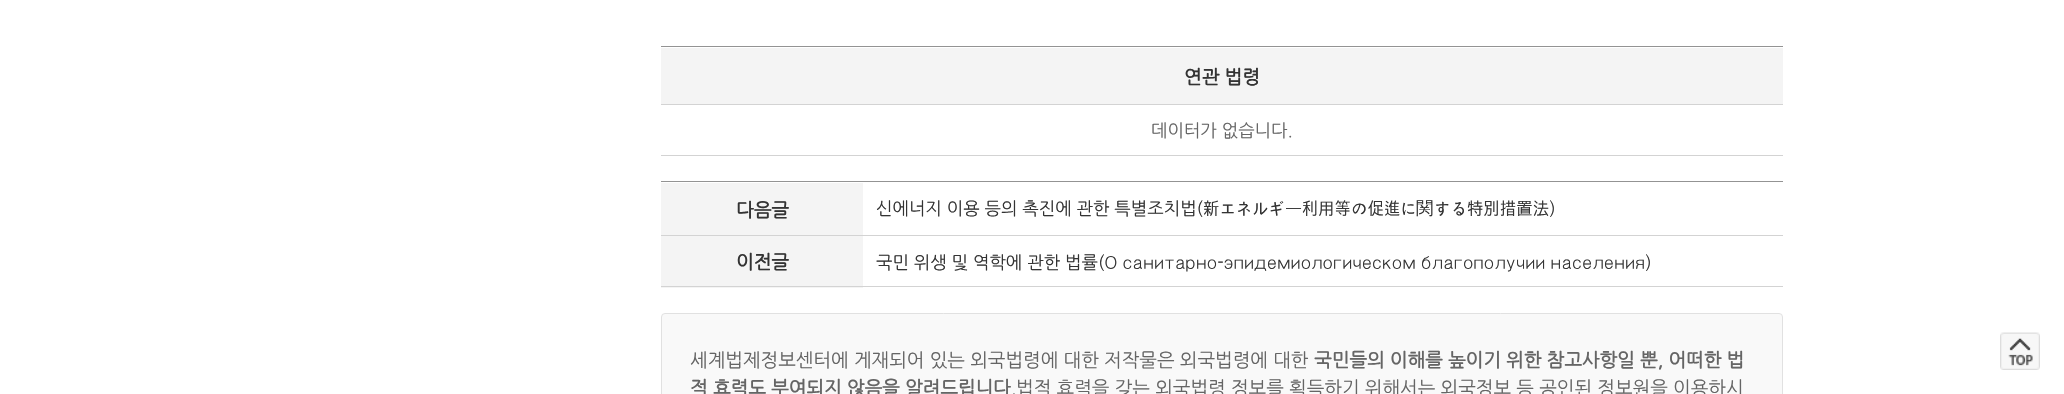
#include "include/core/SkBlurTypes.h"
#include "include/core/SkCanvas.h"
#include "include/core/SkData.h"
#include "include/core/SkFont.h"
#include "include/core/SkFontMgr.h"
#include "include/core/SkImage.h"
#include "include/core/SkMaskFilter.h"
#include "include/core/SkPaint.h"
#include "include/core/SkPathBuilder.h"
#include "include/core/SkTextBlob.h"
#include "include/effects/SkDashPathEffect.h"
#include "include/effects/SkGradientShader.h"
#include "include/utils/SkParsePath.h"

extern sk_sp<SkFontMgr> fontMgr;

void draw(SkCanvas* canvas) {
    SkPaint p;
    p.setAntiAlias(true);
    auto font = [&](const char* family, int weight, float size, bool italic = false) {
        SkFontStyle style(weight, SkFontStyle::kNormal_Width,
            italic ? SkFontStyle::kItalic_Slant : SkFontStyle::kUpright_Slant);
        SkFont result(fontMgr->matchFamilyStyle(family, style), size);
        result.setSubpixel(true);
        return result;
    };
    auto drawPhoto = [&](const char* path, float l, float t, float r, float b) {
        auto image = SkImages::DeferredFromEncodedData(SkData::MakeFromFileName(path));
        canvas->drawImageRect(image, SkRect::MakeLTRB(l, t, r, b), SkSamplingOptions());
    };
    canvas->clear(0xFFFFFFFF);
    {
        const struct { float l, t, r, b; SkColor color; } items[] = {
            {661, 46, 1783, 47, 0xFF939393},
            {661, 48, 1783, 104, 0xFFF4F4F4},
            {661, 104, 1783, 105, 0xFFD3D3D3},
        };
        for (auto [l, t, r, b, color] : items) {
            p.setColor(color);
            canvas->drawRect(SkRect::MakeLTRB(l, t, r, b), p);
        }
    }
    auto font1 = font("NanumGothic", 700, 18.75f);
    p.setColor(0xFF333333);
    canvas->drawString("연관 법령", 1184, 83, font1, p);
    p.setColor(0xFFD3D3D3);
    canvas->drawRect(SkRect::MakeLTRB(661, 155, 1783, 156), p);
    auto font2 = font("NanumGothic", 400, 17.5f);
    p.setColor(0xFF656565);
    canvas->drawString("데이터가 없습니다.", 1151, 136, font2, p);
    p.setColor(0xFF939393);
    canvas->drawRect(SkRect::MakeLTRB(661, 181, 1783, 182), p);
    p.setColor(0xFFF4F4F4);
    canvas->drawRect(SkRect::MakeLTRB(661, 183, 863, 235), p);
    p.setColor(0xFF333333);
    canvas->drawString("다음글", 736, 216, font1, p);
    p.setColor(0xFFD3D3D3);
    canvas->drawRect(SkRect::MakeLTRB(661, 235, 1783, 236), p);
    p.setColor(0xFF333333);
    canvas->drawString("신에너지 이용 등의 촉진에 관한 특별조치법(新エネルギー利用等の促進に", 876, 214, font2, p);
    auto font3 = font("WenQuanYi Zen Hei", 500, 17.5f);
    canvas->drawString("関", 1416, 214, font3, p);
    canvas->drawString("する特別措置法)", 1434, 214, font2, p);
    p.setColor(0xFFF4F4F4);
    canvas->drawRect(SkRect::MakeLTRB(661, 236, 863, 288), p);
    p.setColor(0xFF333333);
    canvas->drawString("이전글", 736, 268, font1, p);
    p.setColor(0xFFD3D3D3);
    canvas->drawRect(SkRect::MakeLTRB(661, 286, 1783, 287), p);
    p.setColor(0xFF333333);
    canvas->drawString("국민 위생 및 역학에 관한 법률(О санитарно-эпидемиологическом благополучии населения)", 876, 268, font2, p);
    p.setColor(0xFFF9F9F9);
    canvas->drawRoundRect(SkRect::MakeLTRB(661.5f, 313.5f, 1782.5f, 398.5f), 3.5f, 3.5f, p);
    p.setStyle(SkPaint::kStroke_Style);
    p.setStrokeWidth(1);
    p.setColor(0xFFE1E1E1);
    canvas->drawRoundRect(SkRect::MakeLTRB(661.5f, 313.5f, 1782.5f, 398.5f), 3.5f, 3.5f, p);
    auto font4 = font("NanumGothic", 400, 18.75f);
    p.setStyle(SkPaint::kFill_Style);
    p.setColor(0xFF656565);
    canvas->drawString("세계법제정보센터에 게재되어 있는 외국법령에 대한 저작물은 외국법령에 대한", 690, 366, font4, p);
    canvas->drawString("국민들의 이해를 높이기 위한 참고사항일 뿐, 어떠한 법", 1314, 366, font1, p);
    canvas->drawString("적 효력도 부여되지 않음을 알려드립니다.", 690, 394, font1, p);
    canvas->drawString("법적 효력을 갖는 외국법령 정보를 획득하기 위해서는 외국정보 등 공인된 정보원을 이용하시", 1016, 394, font4, p);
    drawPhoto("media/1.png", 2000, 332, 2040, 370);
}
